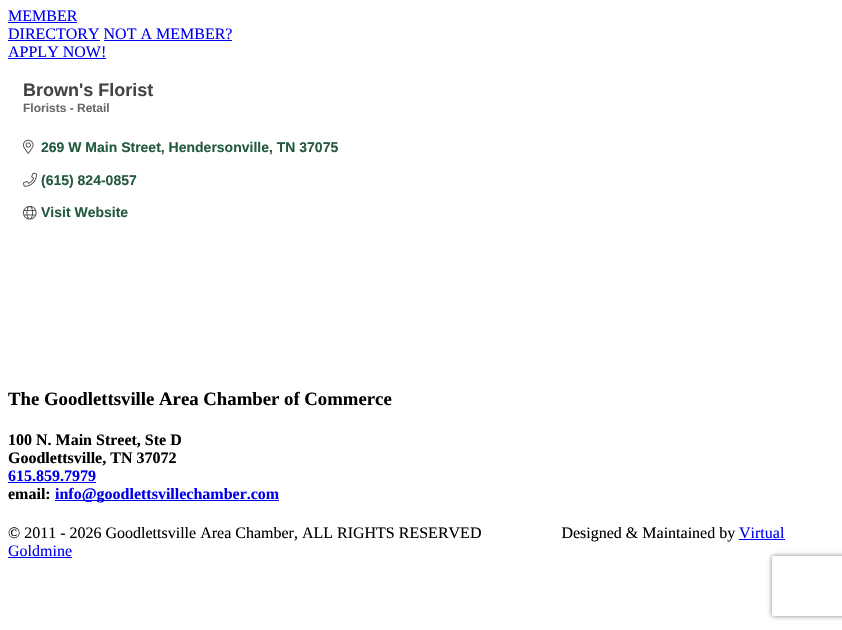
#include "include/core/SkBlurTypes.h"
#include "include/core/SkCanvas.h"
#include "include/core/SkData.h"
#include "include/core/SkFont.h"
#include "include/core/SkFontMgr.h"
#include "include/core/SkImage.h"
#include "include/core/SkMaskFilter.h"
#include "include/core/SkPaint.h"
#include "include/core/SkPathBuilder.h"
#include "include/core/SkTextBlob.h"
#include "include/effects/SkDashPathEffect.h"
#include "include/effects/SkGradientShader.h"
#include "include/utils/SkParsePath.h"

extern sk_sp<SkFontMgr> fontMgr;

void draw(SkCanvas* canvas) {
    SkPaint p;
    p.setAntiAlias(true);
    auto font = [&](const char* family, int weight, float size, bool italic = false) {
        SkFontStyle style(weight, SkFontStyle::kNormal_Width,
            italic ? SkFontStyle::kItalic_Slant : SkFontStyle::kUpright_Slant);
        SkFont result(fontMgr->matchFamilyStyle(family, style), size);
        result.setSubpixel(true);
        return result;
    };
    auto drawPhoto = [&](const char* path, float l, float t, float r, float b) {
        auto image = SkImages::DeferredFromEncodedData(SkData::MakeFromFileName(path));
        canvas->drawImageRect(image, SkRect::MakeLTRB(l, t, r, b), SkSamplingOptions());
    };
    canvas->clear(0xFFFFFFFF);
    auto font1 = font("Liberation Serif", 400, 16);
    p.setColor(0xFF0000EE);
    canvas->drawString("MEMBER", 8, 21, font1, p);
    canvas->drawRect(SkRect::MakeLTRB(8, 22, 77, 23), p);
    canvas->drawString("DIRECTORY NOT A MEMBER?", 8, 39, font1, p);
    canvas->drawRect(SkRect::MakeLTRB(8, 40, 100, 41), p);
    canvas->drawString("APPLY NOW!", 8, 57, font1, p);
    canvas->drawRect(SkRect::MakeLTRB(104, 40, 232, 41), p);
    canvas->drawRect(SkRect::MakeLTRB(8, 58, 106, 59), p);
    auto font2 = font("Liberation Sans", 700, 18);
    p.setColor(0xFF444444);
    canvas->drawString("Brown's Florist", 23, 96, font2, p);
    auto font3 = font("Liberation Sans", 700, 12);
    p.setColor(0xFF696969);
    canvas->drawString("Florists - Retail", 23, 112, font3, p);
    drawPhoto("media/1.png", 23, 139, 34, 154);
    auto font4 = font("Liberation Sans", 700, 14);
    p.setColor(0xFF245A3E);
    canvas->drawString("269 W Main Street, Hendersonville, TN 37075", 41, 152, font4, p);
    drawPhoto("media/2.png", 23, 172, 37, 187);
    canvas->drawString("(615) 824-0857", 41, 185, font4, p);
    drawPhoto("media/3.png", 23, 206, 37, 220);
    canvas->drawString("Visit Website", 41, 217, font4, p);
    auto font5 = font("Liberation Serif", 700, 18.75f);
    p.setColor(0xFF000000);
    canvas->drawString("The Goodlettsville Area Chamber of Commerce", 8, 405, font5, p);
    auto font6 = font("Liberation Serif", 700, 16);
    canvas->drawString("100 N. Main Street, Ste D", 8, 445, font6, p);
    canvas->drawString("Goodlettsville, TN 37072", 8, 463, font6, p);
    p.setColor(0xFF0000EE);
    canvas->drawString("615.859.7979", 8, 481, font6, p);
    canvas->drawRect(SkRect::MakeLTRB(8, 482, 96, 483), p);
    p.setColor(0xFF000000);
    canvas->drawString("email:", 8, 499, font6, p);
    p.setColor(0xFF0000EE);
    canvas->drawRect(SkRect::MakeLTRB(55, 500, 279, 501), p);
    canvas->drawString("info@goodlettsvillechamber.com", 55, 499, font6, p);
    p.setColor(0xFF000000);
    canvas->drawString("© 2011 - 2026 Goodlettsville Area Chamber, ALL RIGHTS RESERVED                    Designed & Maintained by", 8, 538, font1, p);
    p.setColor(0xFF0000EE);
    canvas->drawString("Virtual", 739, 538, font1, p);
    canvas->drawRect(SkRect::MakeLTRB(739, 539, 785, 540), p);
    canvas->drawString("Goldmine", 8, 556, font1, p);
    canvas->drawRect(SkRect::MakeLTRB(8, 557, 72, 558), p);
    canvas->save();
    canvas->clipPath(SkPathBuilder(SkPathFillType::kEvenOdd).moveTo(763, 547).lineTo(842, 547).lineTo(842, 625).lineTo(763, 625).close().moveTo(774, 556).lineTo(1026, 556).cubicTo(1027, 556, 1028, 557, 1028, 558).lineTo(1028, 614).cubicTo(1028, 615, 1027, 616, 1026, 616).lineTo(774, 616).cubicTo(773, 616, 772, 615, 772, 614).lineTo(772, 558).cubicTo(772, 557, 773, 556, 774, 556).close().detach(), true);
    p.setColor(0xFF808080);
    p.setMaskFilter(SkMaskFilter::MakeBlur(kNormal_SkBlurStyle, 2.5f));
    canvas->drawRoundRect(SkRect::MakeLTRB(772, 556, 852, 616), 2, 2, p);
    p.setMaskFilter(nullptr);
    canvas->restore();
}
